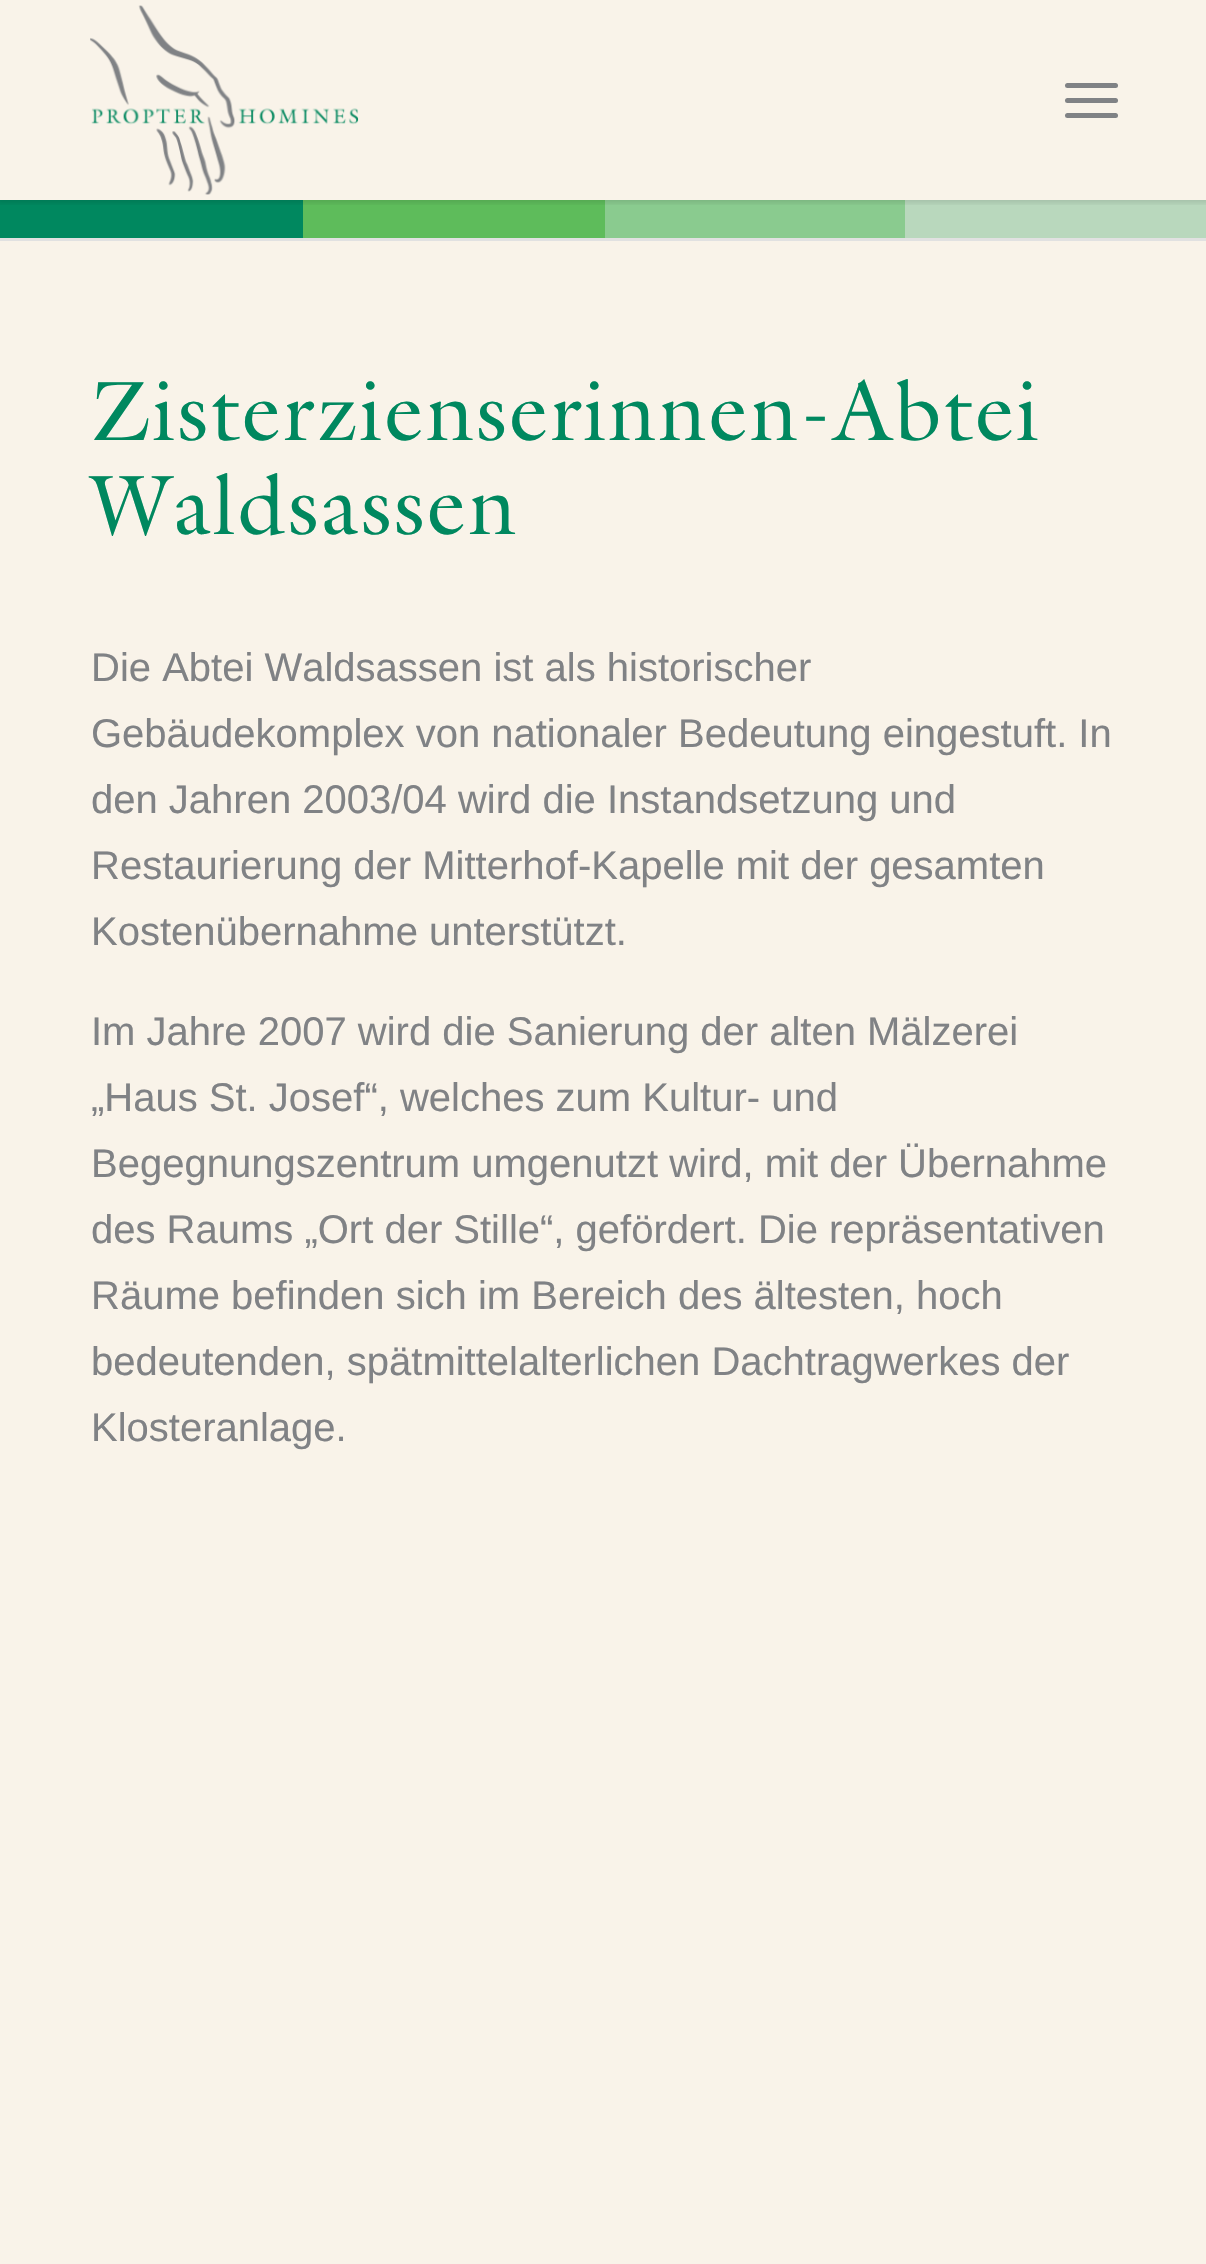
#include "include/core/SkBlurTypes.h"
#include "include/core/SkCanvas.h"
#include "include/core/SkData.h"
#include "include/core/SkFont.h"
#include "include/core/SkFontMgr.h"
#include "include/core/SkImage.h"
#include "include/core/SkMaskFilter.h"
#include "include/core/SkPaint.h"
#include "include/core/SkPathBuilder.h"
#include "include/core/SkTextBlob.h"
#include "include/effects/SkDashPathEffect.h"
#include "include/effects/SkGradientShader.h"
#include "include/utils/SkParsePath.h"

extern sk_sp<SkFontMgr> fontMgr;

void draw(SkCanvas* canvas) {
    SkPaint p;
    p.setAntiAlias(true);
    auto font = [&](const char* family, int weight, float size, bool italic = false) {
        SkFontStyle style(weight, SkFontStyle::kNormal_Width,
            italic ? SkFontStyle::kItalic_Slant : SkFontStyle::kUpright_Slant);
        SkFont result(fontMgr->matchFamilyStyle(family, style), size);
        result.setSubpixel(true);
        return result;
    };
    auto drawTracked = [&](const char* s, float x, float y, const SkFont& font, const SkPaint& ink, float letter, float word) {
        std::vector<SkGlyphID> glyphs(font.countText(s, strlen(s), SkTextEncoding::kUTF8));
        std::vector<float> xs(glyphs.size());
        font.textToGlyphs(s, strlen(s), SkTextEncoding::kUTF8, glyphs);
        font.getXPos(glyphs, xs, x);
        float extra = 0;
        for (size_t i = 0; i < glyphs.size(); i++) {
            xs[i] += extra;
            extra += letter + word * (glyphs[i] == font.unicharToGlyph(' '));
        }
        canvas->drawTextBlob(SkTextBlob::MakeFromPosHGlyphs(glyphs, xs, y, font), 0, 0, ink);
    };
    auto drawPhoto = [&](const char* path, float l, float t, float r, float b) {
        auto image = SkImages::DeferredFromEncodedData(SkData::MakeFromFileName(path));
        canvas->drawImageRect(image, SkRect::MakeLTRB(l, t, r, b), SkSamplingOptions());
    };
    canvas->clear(0xFFF9F3E9);
    {
        const struct { float l, t, r, b; SkColor color; } items[] = {
            {0, 200, 303, 238, 0xFF00885F},
            {303, 200, 605, 238, 0xFF5EBC5B},
            {605, 200, 905, 238, 0xFF8ACB8F},
            {905, 200, 1206, 238, 0xFFB9D8BD},
        };
        for (auto [l, t, r, b, color] : items) {
            p.setColor(color);
            canvas->drawRect(SkRect::MakeLTRB(l, t, r, b), p);
        }
    }
    canvas->save();
    canvas->clipRect(SkRect::MakeLTRB(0, 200, 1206, 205));
    p.setColor(0x1A000000);
    p.setMaskFilter(SkMaskFilter::MakeBlur(kNormal_SkBlurStyle, 2.5f));
    canvas->drawRect(SkRect::MakeLTRB(-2, -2, 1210, 203), p);
    p.setMaskFilter(nullptr);
    canvas->restore();
    drawPhoto("media/1.png", 90, 5, 359, 195);
    p.setColor(0xFF808285);
    canvas->drawRoundRect(SkRect::MakeLTRB(1065, 98, 1118, 103), 2.5f, 2.5f, p);
    canvas->drawRoundRect(SkRect::MakeLTRB(1065, 83, 1118, 88), 2.5f, 2.5f, p);
    canvas->drawRoundRect(SkRect::MakeLTRB(1065, 113, 1118, 118), 2.5f, 2.5f, p);
    p.setColor(0xFFE1E1E1);
    canvas->drawRect(SkRect::MakeLTRB(0, 238, 1206, 241), p);
    auto font1 = font("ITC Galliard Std", 400, 85);
    p.setColor(0xFF00885F);
    drawTracked("Zisterzienserinnen-Abtei", 91, 440, font1, p, 2.5f, 0);
    drawTracked("Waldsassen", 91, 534, font1, p, 2.5f, 0);
    auto font2 = font("Liberation Sans", 400, 40);
    p.setColor(0xFF808285);
    {
        const struct { const char* s; float x, y; } items[] = {
            {"Die Abtei Waldsassen ist als historischer", 91, 681},
            {"Gebäudekomplex von nationaler Bedeutung eingestuft. In", 91, 747},
            {"den Jahren 2003/04 wird die Instandsetzung und", 91, 813},
            {"Restaurierung der Mitterhof-Kapelle mit der gesamten", 91, 879},
            {"Kostenübernahme unterstützt.", 91, 945},
            {"Im Jahre 2007 wird die Sanierung der alten Mälzerei", 91, 1045},
            {"„Haus St. Josef“, welches zum Kultur- und", 91, 1111},
            {"Begegnungszentrum umgenutzt wird, mit der Übernahme", 91, 1177},
            {"des Raums „Ort der Stille“, gefördert. Die repräsentativen", 91, 1243},
            {"Räume befinden sich im Bereich des ältesten, hoch", 91, 1309},
            {"bedeutenden, spätmittelalterlichen Dachtragwerkes der", 91, 1375},
            {"Klosteranlage.", 91, 1441},
        };
        for (auto [s, x, y] : items) {
            canvas->drawString(s, x, y, font2, p);
        }
    }
}
